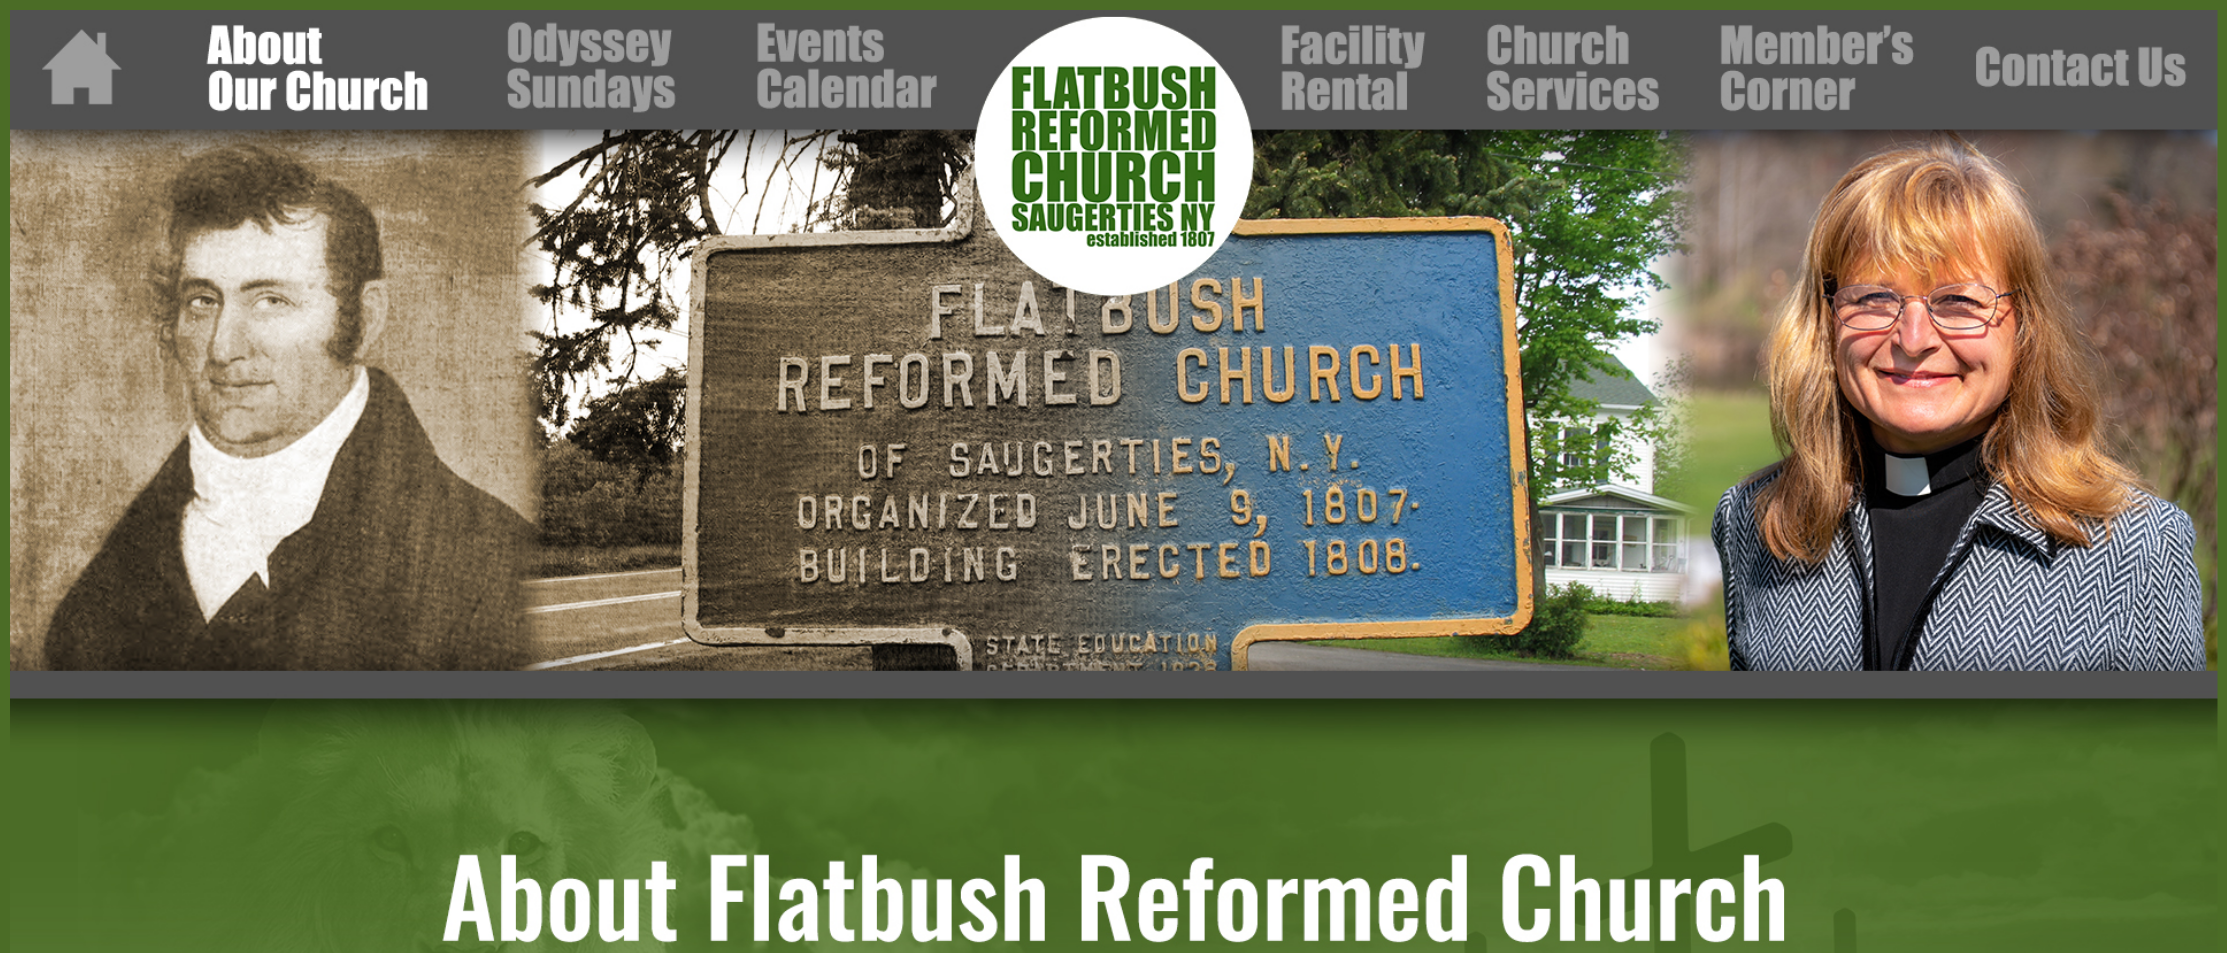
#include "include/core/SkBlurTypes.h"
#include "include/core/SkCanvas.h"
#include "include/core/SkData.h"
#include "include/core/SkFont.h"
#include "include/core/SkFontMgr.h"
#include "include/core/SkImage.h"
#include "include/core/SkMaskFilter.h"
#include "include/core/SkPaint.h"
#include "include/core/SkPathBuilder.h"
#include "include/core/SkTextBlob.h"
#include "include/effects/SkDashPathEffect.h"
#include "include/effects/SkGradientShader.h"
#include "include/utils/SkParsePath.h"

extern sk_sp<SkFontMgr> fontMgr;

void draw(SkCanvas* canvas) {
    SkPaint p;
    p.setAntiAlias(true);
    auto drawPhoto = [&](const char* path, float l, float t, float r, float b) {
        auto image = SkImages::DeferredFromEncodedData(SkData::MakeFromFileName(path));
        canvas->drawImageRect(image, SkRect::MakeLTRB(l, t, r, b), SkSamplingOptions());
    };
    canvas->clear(0xFF4B6C26);
    drawPhoto("media/1.png", 10, 10, 2218, 953);
}
